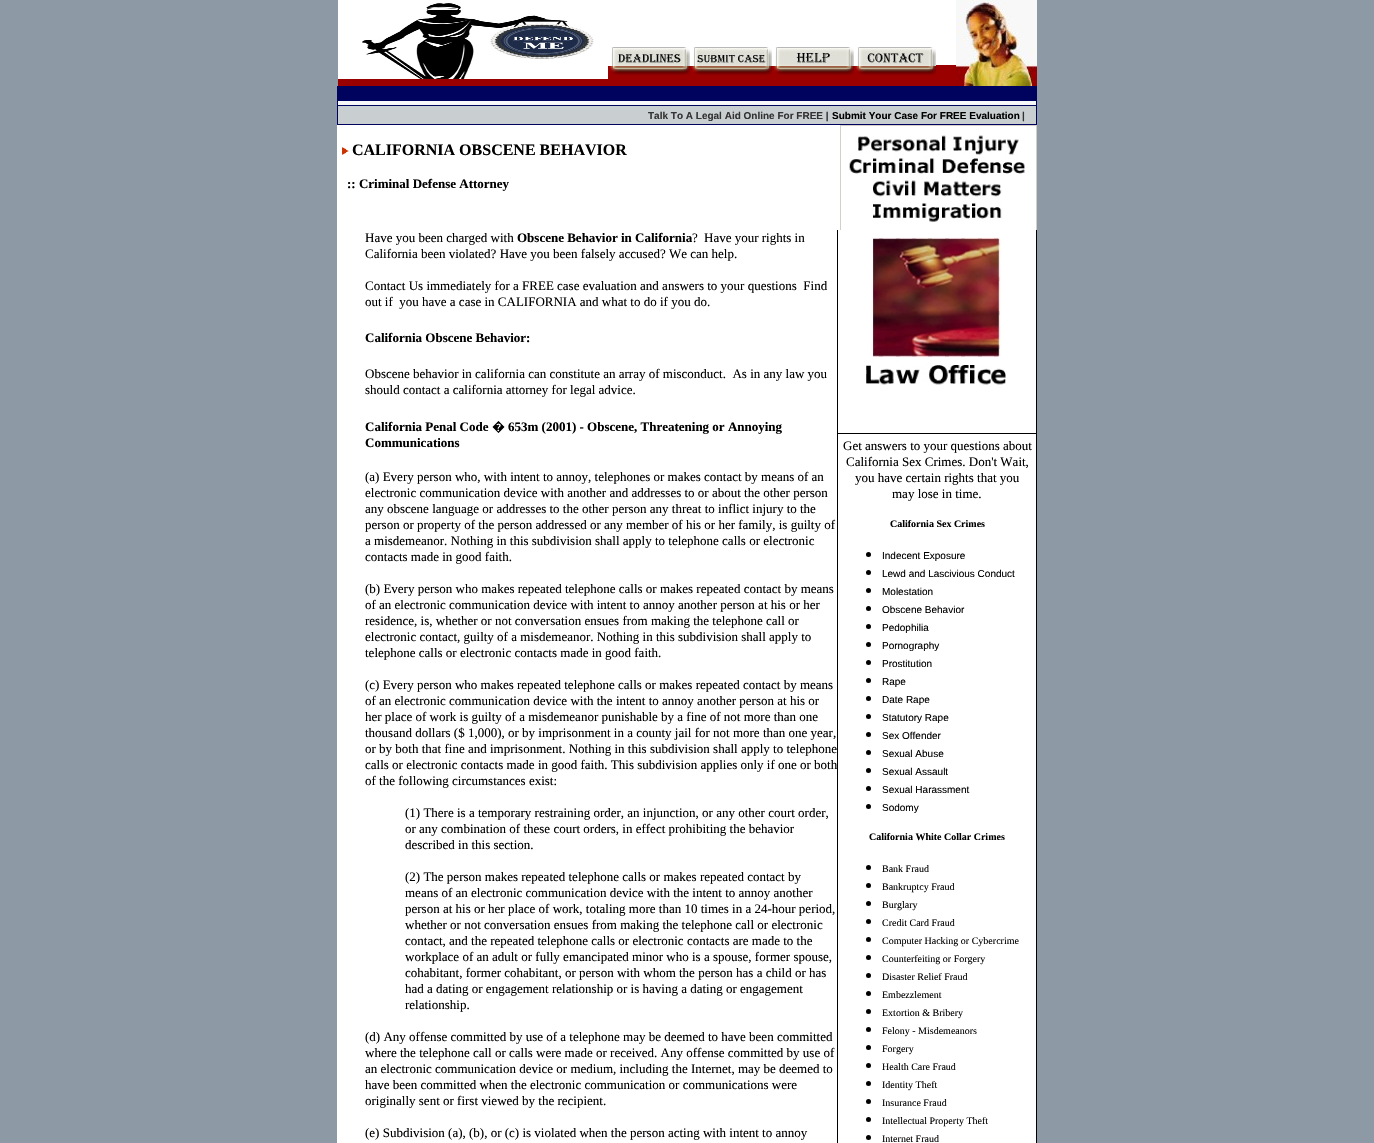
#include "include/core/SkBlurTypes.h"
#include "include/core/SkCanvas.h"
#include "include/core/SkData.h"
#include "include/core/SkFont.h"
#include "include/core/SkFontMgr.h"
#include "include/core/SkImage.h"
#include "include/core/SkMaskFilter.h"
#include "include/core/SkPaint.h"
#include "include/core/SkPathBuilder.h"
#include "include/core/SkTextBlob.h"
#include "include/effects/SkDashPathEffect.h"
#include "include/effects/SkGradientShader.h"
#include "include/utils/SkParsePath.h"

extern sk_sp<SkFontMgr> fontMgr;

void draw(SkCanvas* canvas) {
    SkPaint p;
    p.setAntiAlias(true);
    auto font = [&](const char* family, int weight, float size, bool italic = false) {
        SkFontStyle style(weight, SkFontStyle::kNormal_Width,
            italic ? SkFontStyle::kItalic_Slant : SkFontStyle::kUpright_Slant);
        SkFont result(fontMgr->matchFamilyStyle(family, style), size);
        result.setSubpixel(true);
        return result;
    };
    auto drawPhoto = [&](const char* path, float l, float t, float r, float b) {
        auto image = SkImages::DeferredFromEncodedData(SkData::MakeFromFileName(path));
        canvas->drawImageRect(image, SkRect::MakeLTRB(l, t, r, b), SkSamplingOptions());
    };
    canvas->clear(0xFF8D99A5);
    drawPhoto("media/1.png", 338, 0, 608, 86);
    p.setColor(0xFFFFFFFF);
    canvas->drawRect(SkRect::MakeLTRB(608, 0, 936, 47), p);
    drawPhoto("media/2.png", 608, 47, 690, 86);
    canvas->drawRect(SkRect::MakeLTRB(936, 0, 956, 65), p);
    p.setColor(0xFF9A0000);
    canvas->drawRect(SkRect::MakeLTRB(936, 65, 956, 86), p);
    drawPhoto("media/3.png", 956, 0, 1037, 86);
    drawPhoto("media/4.png", 690, 47, 772, 86);
    drawPhoto("media/5.png", 772, 47, 854, 86);
    drawPhoto("media/6.png", 854, 47, 936, 86);
    p.setColor(0xFF00035E);
    canvas->drawRect(SkRect::MakeLTRB(337, 86, 1037, 125), p);
    drawPhoto("media/7.png", 338, 101, 1036, 105);
    p.setColor(0xFFC9CED0);
    canvas->drawRect(SkRect::MakeLTRB(338, 106, 1036, 124), p);
    auto font1 = font("Liberation Sans", 700, 10);
    p.setColor(0xFF333333);
    canvas->drawString("Talk To A Legal Aid Online For FREE |", 648, 119, font1, p);
    p.setColor(0xFF000000);
    canvas->drawString("Submit Your Case For FREE Evaluation", 832, 119, font1, p);
    p.setColor(0xFF333333);
    canvas->drawString("|", 1022, 119, font1, p);
    p.setColor(0xFFFFFFFF);
    canvas->drawRect(SkRect::MakeLTRB(337, 125, 1036, 1143), p);
    drawPhoto("media/8.png", 342, 147, 349, 155);
    auto font2 = font("Liberation Serif", 700, 16);
    p.setColor(0xFF000000);
    canvas->drawString("CALIFORNIA OBSCENE BEHAVIOR", 352, 155, font2, p);
    {
        const struct { float l, t, r, b; SkColor color; } items[] = {
            {840, 125, 1037, 126, 0xFFD4D0C8},
            {1036, 125, 1037, 230, 0xFFD4D0C8},
            {840, 125, 841, 230, 0xFFD4D0C8},
        };
        for (auto [l, t, r, b, color] : items) {
            p.setColor(color);
            canvas->drawRect(SkRect::MakeLTRB(l, t, r, b), p);
        }
    }
    drawPhoto("media/9.png", 849, 135, 1025, 222);
    auto font3 = font("Liberation Serif", 700, 13);
    p.setColor(0xFF000000);
    canvas->drawString(":: Criminal Defense Attorney", 347, 188, font3, p);
    auto font4 = font("Liberation Serif", 400, 13);
    canvas->drawString("Have you been charged with", 365, 242, font4, p);
    canvas->drawString("Obscene Behavior in California", 517, 242, font3, p);
    {
        const struct { const char* s; float x, y; } items[] = {
            {"?", 692, 242},
            {"Have your rights in", 704, 242},
            {"California been violated? Have you been falsely accused? We can help.", 365, 258},
            {"Contact Us immediately for a FREE case evaluation and answers to your questions  Find", 365, 290},
            {"out if  you have a case in CALIFORNIA and what to do if you do.", 365, 306},
        };
        for (auto [s, x, y] : items) {
            canvas->drawString(s, x, y, font4, p);
        }
    }
    canvas->drawString("California Obscene Behavior:", 365, 342, font3, p);
    canvas->drawString("Obscene behavior in california can constitute an array of misconduct.  As in any law you", 365, 378, font4, p);
    canvas->drawString("should contact a california attorney for legal advice.", 365, 394, font4, p);
    canvas->drawString("California Penal Code", 365, 431, font3, p);
    auto font5 = font("Noto Sans", 700, 13);
    canvas->drawString("�", 492, 431, font5, p);
    canvas->drawString("653m (2001) - Obscene, Threatening or Annoying", 508, 431, font3, p);
    canvas->drawString("Communications", 365, 447, font3, p);
    {
        const struct { const char* s; float x, y; } items[] = {
            {"(a) Every person who, with intent to annoy, telephones or makes contact by means of an", 365, 481},
            {"electronic communication device with another and addresses to or about the other person", 365, 497},
            {"any obscene language or addresses to the other person any threat to inflict injury to the", 365, 513},
            {"person or property of the person addressed or any member of his or her family, is guilty of", 365, 529},
            {"a misdemeanor. Nothing in this subdivision shall apply to telephone calls or electronic", 365, 545},
            {"contacts made in good faith.", 365, 561},
            {"(b) Every person who makes repeated telephone calls or makes repeated contact by means", 365, 593},
            {"of an electronic communication device with intent to annoy another person at his or her", 365, 609},
            {"residence, is, whether or not conversation ensues from making the telephone call or", 365, 625},
            {"electronic contact, guilty of a misdemeanor. Nothing in this subdivision shall apply to", 365, 641},
            {"telephone calls or electronic contacts made in good faith.", 365, 657},
            {"(c) Every person who makes repeated telephone calls or makes repeated contact by means", 365, 689},
            {"of an electronic communication device with the intent to annoy another person at his or", 365, 705},
            {"her place of work is guilty of a misdemeanor punishable by a fine of not more than one", 365, 721},
            {"thousand dollars ($ 1,000), or by imprisonment in a county jail for not more than one year,", 365, 737},
            {"or by both that fine and imprisonment. Nothing in this subdivision shall apply to telephone", 365, 753},
        };
        for (auto [s, x, y] : items) {
            canvas->drawString(s, x, y, font4, p);
        }
    }
    {
        const struct { float l, t, r, b; SkColor color; } items[] = {
            {1036, 230, 1037, 1143, 0xFF000000},
            {837, 433, 1037, 434, 0xFF000000},
            {837, 230, 838, 1143, 0xFF000000},
        };
        for (auto [l, t, r, b, color] : items) {
            p.setColor(color);
            canvas->drawRect(SkRect::MakeLTRB(l, t, r, b), p);
        }
    }
    {
        const struct { const char* s; float x, y; } items[] = {
            {"calls or electronic contacts made in good faith. This subdivision applies only if one or both", 365, 769},
            {"of the following circumstances exist:", 365, 785},
            {"(1) There is a temporary restraining order, an injunction, or any other court order,", 405, 817},
            {"or any combination of these court orders, in effect prohibiting the behavior", 405, 833},
            {"described in this section.", 405, 849},
            {"(2) The person makes repeated telephone calls or makes repeated contact by", 405, 881},
            {"means of an electronic communication device with the intent to annoy another", 405, 897},
            {"person at his or her place of work, totaling more than 10 times in a 24-hour period,", 405, 913},
            {"whether or not conversation ensues from making the telephone call or electronic", 405, 929},
            {"contact, and the repeated telephone calls or electronic contacts are made to the", 405, 945},
            {"workplace of an adult or fully emancipated minor who is a spouse, former spouse,", 405, 961},
            {"cohabitant, former cohabitant, or person with whom the person has a child or has", 405, 977},
            {"had a dating or engagement relationship or is having a dating or engagement", 405, 993},
            {"relationship.", 405, 1009},
            {"(d) Any offense committed by use of a telephone may be deemed to have been committed", 365, 1041},
            {"where the telephone call or calls were made or received. Any offense committed by use of", 365, 1057},
            {"an electronic communication device or medium, including the Internet, may be deemed to", 365, 1073},
            {"have been committed when the electronic communication or communications were", 365, 1089},
            {"originally sent or first viewed by the recipient.", 365, 1105},
            {"(e) Subdivision (a), (b), or (c) is violated when the person acting with intent to annoy", 365, 1137},
        };
        for (auto [s, x, y] : items) {
            canvas->drawString(s, x, y, font4, p);
        }
    }
    drawPhoto("media/10.png", 866, 237, 1006, 385);
    {
        const struct { const char* s; float x, y; } items[] = {
            {"Get answers to your questions about", 843, 450},
            {"California Sex Crimes. Don't Wait,", 846, 466},
            {"you have certain rights that you", 855, 482},
            {"may lose in time.", 892, 498},
        };
        for (auto [s, x, y] : items) {
            canvas->drawString(s, x, y, font4, p);
        }
    }
    auto font6 = font("Liberation Serif", 700, 10);
    canvas->drawString("California Sex Crimes", 890, 527, font6, p);
    canvas->drawCircle(868.5f, 554.5f, 2.5f, p);
    auto font7 = font("Liberation Sans", 400, 10);
    canvas->drawString("Indecent Exposure", 882, 559, font7, p);
    canvas->drawCircle(868.5f, 572.5f, 2.5f, p);
    canvas->drawString("Lewd and Lascivious Conduct", 882, 577, font7, p);
    canvas->drawCircle(868.5f, 590.5f, 2.5f, p);
    canvas->drawString("Molestation", 882, 595, font7, p);
    canvas->drawCircle(868.5f, 608.5f, 2.5f, p);
    canvas->drawString("Obscene Behavior", 882, 613, font7, p);
    canvas->drawCircle(868.5f, 626.5f, 2.5f, p);
    canvas->drawString("Pedophilia", 882, 631, font7, p);
    canvas->drawCircle(868.5f, 644.5f, 2.5f, p);
    canvas->drawString("Pornography", 882, 649, font7, p);
    canvas->drawCircle(868.5f, 662.5f, 2.5f, p);
    canvas->drawString("Prostitution", 882, 667, font7, p);
    canvas->drawCircle(868.5f, 680.5f, 2.5f, p);
    canvas->drawString("Rape", 882, 685, font7, p);
    canvas->drawCircle(868.5f, 698.5f, 2.5f, p);
    canvas->drawString("Date Rape", 882, 703, font7, p);
    canvas->drawCircle(868.5f, 716.5f, 2.5f, p);
    canvas->drawString("Statutory Rape", 882, 721, font7, p);
    canvas->drawCircle(868.5f, 734.5f, 2.5f, p);
    canvas->drawString("Sex Offender", 882, 739, font7, p);
    canvas->drawCircle(868.5f, 752.5f, 2.5f, p);
    canvas->drawString("Sexual Abuse", 882, 757, font7, p);
    canvas->drawCircle(868.5f, 770.5f, 2.5f, p);
    canvas->drawString("Sexual Assault", 882, 775, font7, p);
    canvas->drawCircle(868.5f, 788.5f, 2.5f, p);
    canvas->drawString("Sexual Harassment", 882, 793, font7, p);
    canvas->drawCircle(868.5f, 806.5f, 2.5f, p);
    canvas->drawString("Sodomy", 882, 811, font7, p);
    canvas->drawString("California White Collar Crimes", 869, 840, font6, p);
    canvas->drawCircle(868.5f, 867.5f, 2.5f, p);
    auto font8 = font("Liberation Serif", 400, 10);
    canvas->drawString("Bank Fraud", 882, 872, font8, p);
    canvas->drawCircle(868.5f, 885.5f, 2.5f, p);
    canvas->drawString("Bankruptcy Fraud", 882, 890, font8, p);
    canvas->drawCircle(868.5f, 903.5f, 2.5f, p);
    canvas->drawString("Burglary", 882, 908, font8, p);
    canvas->drawCircle(868.5f, 921.5f, 2.5f, p);
    canvas->drawString("Credit Card Fraud", 882, 926, font8, p);
    canvas->drawCircle(868.5f, 939.5f, 2.5f, p);
    canvas->drawString("Computer Hacking or Cybercrime", 882, 944, font8, p);
    canvas->drawCircle(868.5f, 957.5f, 2.5f, p);
    canvas->drawString("Counterfeiting or Forgery", 882, 962, font8, p);
    canvas->drawCircle(868.5f, 975.5f, 2.5f, p);
    canvas->drawString("Disaster Relief Fraud", 882, 980, font8, p);
    canvas->drawCircle(868.5f, 993.5f, 2.5f, p);
    canvas->drawString("Embezzlement", 882, 998, font8, p);
    canvas->drawCircle(868.5f, 1011.5f, 2.5f, p);
    canvas->drawString("Extortion & Bribery", 882, 1016, font8, p);
    canvas->drawCircle(868.5f, 1029.5f, 2.5f, p);
    canvas->drawString("Felony - Misdemeanors", 882, 1034, font8, p);
    canvas->drawCircle(868.5f, 1047.5f, 2.5f, p);
    canvas->drawString("Forgery", 882, 1052, font8, p);
    canvas->drawCircle(868.5f, 1065.5f, 2.5f, p);
    canvas->drawString("Health Care Fraud", 882, 1070, font8, p);
    canvas->drawCircle(868.5f, 1083.5f, 2.5f, p);
    canvas->drawString("Identity Theft", 882, 1088, font8, p);
    canvas->drawCircle(868.5f, 1101.5f, 2.5f, p);
    canvas->drawString("Insurance Fraud", 882, 1106, font8, p);
    canvas->drawCircle(868.5f, 1119.5f, 2.5f, p);
    canvas->drawString("Intellectual Property Theft", 882, 1124, font8, p);
    canvas->drawCircle(868.5f, 1137.5f, 2.5f, p);
    canvas->drawString("Internet Fraud", 882, 1142, font8, p);
}
